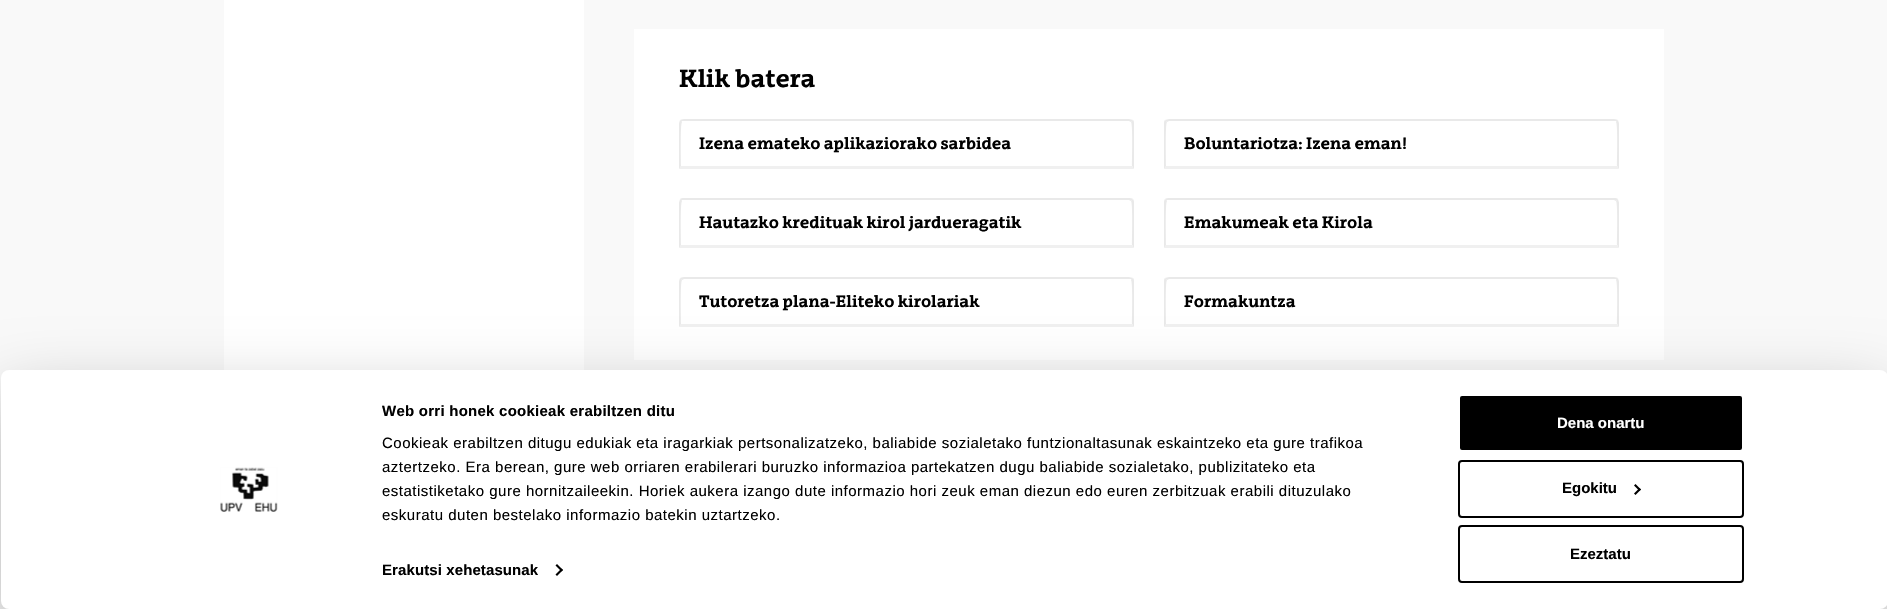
#include "include/core/SkBlurTypes.h"
#include "include/core/SkCanvas.h"
#include "include/core/SkData.h"
#include "include/core/SkFont.h"
#include "include/core/SkFontMgr.h"
#include "include/core/SkImage.h"
#include "include/core/SkMaskFilter.h"
#include "include/core/SkPaint.h"
#include "include/core/SkPathBuilder.h"
#include "include/core/SkTextBlob.h"
#include "include/effects/SkDashPathEffect.h"
#include "include/effects/SkGradientShader.h"
#include "include/utils/SkParsePath.h"

extern sk_sp<SkFontMgr> fontMgr;

void draw(SkCanvas* canvas) {
    SkPaint p;
    p.setAntiAlias(true);
    auto font = [&](const char* family, int weight, float size, bool italic = false) {
        SkFontStyle style(weight, SkFontStyle::kNormal_Width,
            italic ? SkFontStyle::kItalic_Slant : SkFontStyle::kUpright_Slant);
        SkFont result(fontMgr->matchFamilyStyle(family, style), size);
        result.setSubpixel(true);
        return result;
    };
    auto drawTracked = [&](const char* s, float x, float y, const SkFont& font, const SkPaint& ink, float letter, float word) {
        std::vector<SkGlyphID> glyphs(font.countText(s, strlen(s), SkTextEncoding::kUTF8));
        std::vector<float> xs(glyphs.size());
        font.textToGlyphs(s, strlen(s), SkTextEncoding::kUTF8, glyphs);
        font.getXPos(glyphs, xs, x);
        float extra = 0;
        for (size_t i = 0; i < glyphs.size(); i++) {
            xs[i] += extra;
            extra += letter + word * (glyphs[i] == font.unicharToGlyph(' '));
        }
        canvas->drawTextBlob(SkTextBlob::MakeFromPosHGlyphs(glyphs, xs, y, font), 0, 0, ink);
    };
    auto drawPhoto = [&](const char* path, float l, float t, float r, float b) {
        auto image = SkImages::DeferredFromEncodedData(SkData::MakeFromFileName(path));
        canvas->drawImageRect(image, SkRect::MakeLTRB(l, t, r, b), SkSamplingOptions());
    };
    canvas->clear(0xFFF9F9F9);
    p.setColor(0xFFFFFFFF);
    canvas->drawRect(SkRect::MakeLTRB(224, 0, 584, 370), p);
    canvas->drawRect(SkRect::MakeLTRB(634, 29, 1664, 360), p);
    auto font1 = font("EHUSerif", 700, 24);
    p.setColor(0xFF000000);
    canvas->drawString("Klik batera", 679, 87, font1, p);
    p.setColor(0xFFE9E9E9);
    canvas->drawPath(SkPathBuilder().moveTo(684, 119).cubicTo(682, 119, 681, 120, 680, 120).lineTo(682, 122).lineTo(682, 121).lineTo(832, 121).lineTo(1129, 121).lineTo(1131, 122).lineTo(1133, 120).cubicTo(1132, 120, 1130, 119, 1129, 119).close().detach(), p);
    canvas->drawPath(SkPathBuilder().moveTo(1134, 168).lineTo(1134, 124).cubicTo(1134, 122, 1134, 121, 1133, 120).lineTo(1131, 122).cubicTo(1133, 124, 1132, 161, 1132, 166).lineTo(1134, 169).close().detach(), p);
    p.setColor(0xFFF0F0F0);
    canvas->drawPath(SkPathBuilder().moveTo(680, 169).lineTo(1134, 169).lineTo(1132, 166).lineTo(681, 166).lineTo(679, 169).close().detach(), p);
    p.setColor(0xFFE9E9E9);
    canvas->drawPath(SkPathBuilder().moveTo(679, 124).lineTo(679, 169).lineTo(681, 166).cubicTo(681, 161, 680, 124, 682, 122).lineTo(680, 120).cubicTo(680, 121, 679, 122, 679, 124).close().detach(), p);
    auto font2 = font("EHUSerif", 700, 16);
    p.setColor(0xFF000000);
    canvas->drawString("Izena emateko aplikaziorako sarbidea", 699, 149, font2, p);
    p.setColor(0xFFE9E9E9);
    canvas->drawPath(SkPathBuilder().moveTo(1169, 119).cubicTo(1168, 119, 1166, 120, 1165, 120).lineTo(1167, 122).lineTo(1169, 121).lineTo(1466, 121).lineTo(1616, 121).lineTo(1616, 122).lineTo(1618, 120).cubicTo(1617, 120, 1616, 119, 1614, 119).close().detach(), p);
    canvas->drawPath(SkPathBuilder().moveTo(1619, 168).lineTo(1619, 124).cubicTo(1619, 122, 1618, 121, 1618, 120).lineTo(1616, 122).cubicTo(1618, 124, 1617, 161, 1617, 166).lineTo(1619, 169).close().detach(), p);
    p.setColor(0xFFF0F0F0);
    canvas->drawPath(SkPathBuilder().moveTo(1165, 169).lineTo(1619, 169).lineTo(1617, 166).lineTo(1166, 166).lineTo(1164, 169).close().detach(), p);
    p.setColor(0xFFE9E9E9);
    canvas->drawPath(SkPathBuilder().moveTo(1164, 124).lineTo(1164, 169).lineTo(1166, 166).cubicTo(1166, 161, 1165, 124, 1167, 122).lineTo(1165, 120).cubicTo(1164, 121, 1164, 122, 1164, 124).close().detach(), p);
    p.setColor(0xFF000000);
    canvas->drawString("Boluntariotza: Izena eman!", 1184, 149, font2, p);
    p.setColor(0xFFE9E9E9);
    canvas->drawPath(SkPathBuilder().moveTo(684, 198).cubicTo(682, 198, 681, 198, 680, 199).lineTo(682, 201).lineTo(682, 200).lineTo(832, 200).lineTo(1129, 200).lineTo(1131, 201).lineTo(1133, 199).cubicTo(1132, 198, 1130, 198, 1129, 198).close().detach(), p);
    canvas->drawPath(SkPathBuilder().moveTo(1134, 247).lineTo(1134, 203).cubicTo(1134, 202, 1134, 200, 1133, 199).lineTo(1131, 201).cubicTo(1133, 203, 1132, 240, 1132, 245).lineTo(1134, 248).close().detach(), p);
    p.setColor(0xFFF0F0F0);
    canvas->drawPath(SkPathBuilder().moveTo(680, 248).lineTo(1134, 248).lineTo(1132, 245).lineTo(681, 245).lineTo(679, 248).close().detach(), p);
    p.setColor(0xFFE9E9E9);
    canvas->drawPath(SkPathBuilder().moveTo(679, 203).lineTo(679, 248).lineTo(681, 245).cubicTo(681, 240, 680, 203, 682, 201).lineTo(680, 199).cubicTo(680, 200, 679, 202, 679, 203).close().detach(), p);
    p.setColor(0xFF000000);
    canvas->drawString("Hautazko kredituak kirol jardueragatik", 699, 228, font2, p);
    p.setColor(0xFFE9E9E9);
    canvas->drawPath(SkPathBuilder().moveTo(1169, 198).cubicTo(1168, 198, 1166, 198, 1165, 199).lineTo(1167, 201).lineTo(1167, 200).lineTo(1317, 200).lineTo(1614, 200).lineTo(1616, 201).lineTo(1618, 199).cubicTo(1617, 198, 1616, 198, 1614, 198).close().detach(), p);
    canvas->drawPath(SkPathBuilder().moveTo(1619, 247).lineTo(1619, 203).cubicTo(1619, 202, 1618, 200, 1618, 199).lineTo(1616, 201).cubicTo(1618, 203, 1617, 240, 1617, 245).lineTo(1619, 248).close().detach(), p);
    p.setColor(0xFFF0F0F0);
    canvas->drawPath(SkPathBuilder().moveTo(1165, 248).lineTo(1619, 248).lineTo(1617, 245).lineTo(1166, 245).lineTo(1164, 248).close().detach(), p);
    p.setColor(0xFFE9E9E9);
    canvas->drawPath(SkPathBuilder().moveTo(1164, 203).lineTo(1164, 248).lineTo(1166, 245).cubicTo(1166, 240, 1165, 203, 1167, 201).lineTo(1165, 199).cubicTo(1164, 200, 1164, 202, 1164, 203).close().detach(), p);
    p.setColor(0xFF000000);
    canvas->drawString("Emakumeak eta Kirola", 1184, 228, font2, p);
    p.setColor(0xFFE9E9E9);
    canvas->drawPath(SkPathBuilder().moveTo(684, 277).cubicTo(682, 277, 681, 278, 680, 278).lineTo(682, 280).lineTo(684, 279).lineTo(981, 279).lineTo(1131, 279).lineTo(1131, 280).lineTo(1133, 278).cubicTo(1132, 278, 1130, 277, 1129, 277).close().detach(), p);
    canvas->drawPath(SkPathBuilder().moveTo(1134, 326).lineTo(1134, 282).cubicTo(1134, 280, 1134, 279, 1133, 278).lineTo(1131, 280).cubicTo(1133, 282, 1132, 319, 1132, 324).lineTo(1134, 327).close().detach(), p);
    p.setColor(0xFFF0F0F0);
    canvas->drawPath(SkPathBuilder().moveTo(680, 327).lineTo(1134, 327).lineTo(1132, 324).lineTo(681, 324).lineTo(679, 327).close().detach(), p);
    p.setColor(0xFFE9E9E9);
    canvas->drawPath(SkPathBuilder().moveTo(679, 282).lineTo(679, 327).lineTo(681, 324).cubicTo(681, 319, 680, 282, 682, 280).lineTo(680, 278).cubicTo(680, 279, 679, 280, 679, 282).close().detach(), p);
    p.setColor(0xFF000000);
    canvas->drawString("Tutoretza plana-Eliteko kirolariak", 699, 307, font2, p);
    p.setColor(0xFFE9E9E9);
    canvas->drawPath(SkPathBuilder().moveTo(1169, 277).cubicTo(1168, 277, 1166, 278, 1165, 278).lineTo(1167, 280).lineTo(1169, 279).lineTo(1466, 279).lineTo(1616, 279).lineTo(1616, 280).lineTo(1618, 278).cubicTo(1617, 278, 1616, 277, 1614, 277).close().detach(), p);
    canvas->drawPath(SkPathBuilder().moveTo(1619, 326).lineTo(1619, 282).cubicTo(1619, 280, 1618, 279, 1618, 278).lineTo(1616, 280).cubicTo(1618, 282, 1617, 319, 1617, 324).lineTo(1619, 327).close().detach(), p);
    p.setColor(0xFFF0F0F0);
    canvas->drawPath(SkPathBuilder().moveTo(1165, 327).lineTo(1619, 327).lineTo(1617, 324).lineTo(1166, 324).lineTo(1164, 327).close().detach(), p);
    p.setColor(0xFFE9E9E9);
    canvas->drawPath(SkPathBuilder().moveTo(1164, 282).lineTo(1164, 327).lineTo(1166, 324).cubicTo(1166, 319, 1165, 282, 1167, 280).lineTo(1165, 278).cubicTo(1164, 279, 1164, 280, 1164, 282).close().detach(), p);
    p.setColor(0xFF000000);
    canvas->drawString("Formakuntza", 1184, 307, font2, p);
    p.setColor(0x4D000000);
    p.setMaskFilter(SkMaskFilter::MakeBlur(kNormal_SkBlurStyle, 35));
    canvas->drawRoundRect(SkRect::MakeLTRB(1, 400, 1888, 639), 8, 8, p);
    p.setMaskFilter(nullptr);
    p.setColor(0xFFFFFFFF);
    canvas->drawRoundRect(SkRect::MakeLTRB(1, 370, 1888, 609), 8, 8, p);
    drawPhoto("media/1.png", 220, 467, 278, 512);
    auto font3 = font("Liberation Sans", 700, 15);
    p.setColor(0xFF000000);
    drawTracked("Web orri honek cookieak erabiltzen ditu", 382, 416, font3, p, 0.25f, 0);
    auto font4 = font("Liberation Sans", 400, 15);
    {
        const struct { const char* s; float x, y; } items[] = {
            {"Cookieak erabiltzen ditugu edukiak eta iragarkiak pertsonalizatzeko, baliabide sozialetako funtzionaltasunak eskaintzeko eta gure trafikoa", 382, 448},
            {"aztertzeko. Era berean, gure web orriaren erabilerari buruzko informazioa partekatzen dugu baliabide sozialetako, publizitateko eta", 382, 472},
            {"estatistiketako gure hornitzaileekin. Horiek aukera izango dute informazio hori zeuk eman diezun edo euren zerbitzuak erabili dituzulako", 382, 496},
            {"eskuratu duten bestelako informazio batekin uztartzeko.", 382, 520},
        };
        for (auto [s, x, y] : items) {
            drawTracked(s, x, y, font4, p, 0.5f, 0);
        }
    }
    drawTracked("Erakutsi xehetasunak", 382, 575, font3, p, 0.1f, 0);
    canvas->drawPath(SkPathBuilder().moveTo(557, 564).lineTo(563, 570).lineTo(561.5f, 571.5f).lineTo(555.5f, 565.5f).close().detach(), p);
    canvas->drawPath(SkPathBuilder().moveTo(561.5f, 568.5f).lineTo(563, 570).lineTo(557, 576).lineTo(555.5f, 574.5f).close().detach(), p);
    canvas->drawRoundRect(SkRect::MakeLTRB(1459, 395, 1743, 451), 3, 3, p);
    p.setStyle(SkPaint::kStroke_Style);
    p.setStrokeWidth(2);
    p.setColor(0xFFFFFFFF);
    canvas->drawRoundRect(SkRect::MakeLTRB(1459, 395, 1743, 451), 3, 3, p);
    p.setStyle(SkPaint::kFill_Style);
    canvas->drawString("Dena onartu", 1557, 428, font3, p);
    p.setStyle(SkPaint::kStroke_Style);
    p.setColor(0xFF000000);
    canvas->drawRoundRect(SkRect::MakeLTRB(1459, 461, 1743, 517), 3, 3, p);
    p.setStyle(SkPaint::kFill_Style);
    canvas->drawString("Egokitu", 1562, 493, font3, p);
    canvas->drawPath(SkPathBuilder().moveTo(1635.5f, 484).lineTo(1641, 489.5f).lineTo(1639.5f, 491).lineTo(1634, 485.5f).close().detach(), p);
    canvas->drawPath(SkPathBuilder().moveTo(1639.5f, 488).lineTo(1641, 489.5f).lineTo(1635.5f, 495).lineTo(1634, 493.5f).close().detach(), p);
    p.setStyle(SkPaint::kStroke_Style);
    canvas->drawRoundRect(SkRect::MakeLTRB(1459, 526, 1743, 582), 3, 3, p);
    p.setStyle(SkPaint::kFill_Style);
    canvas->drawString("Ezeztatu", 1570, 559, font3, p);
}
